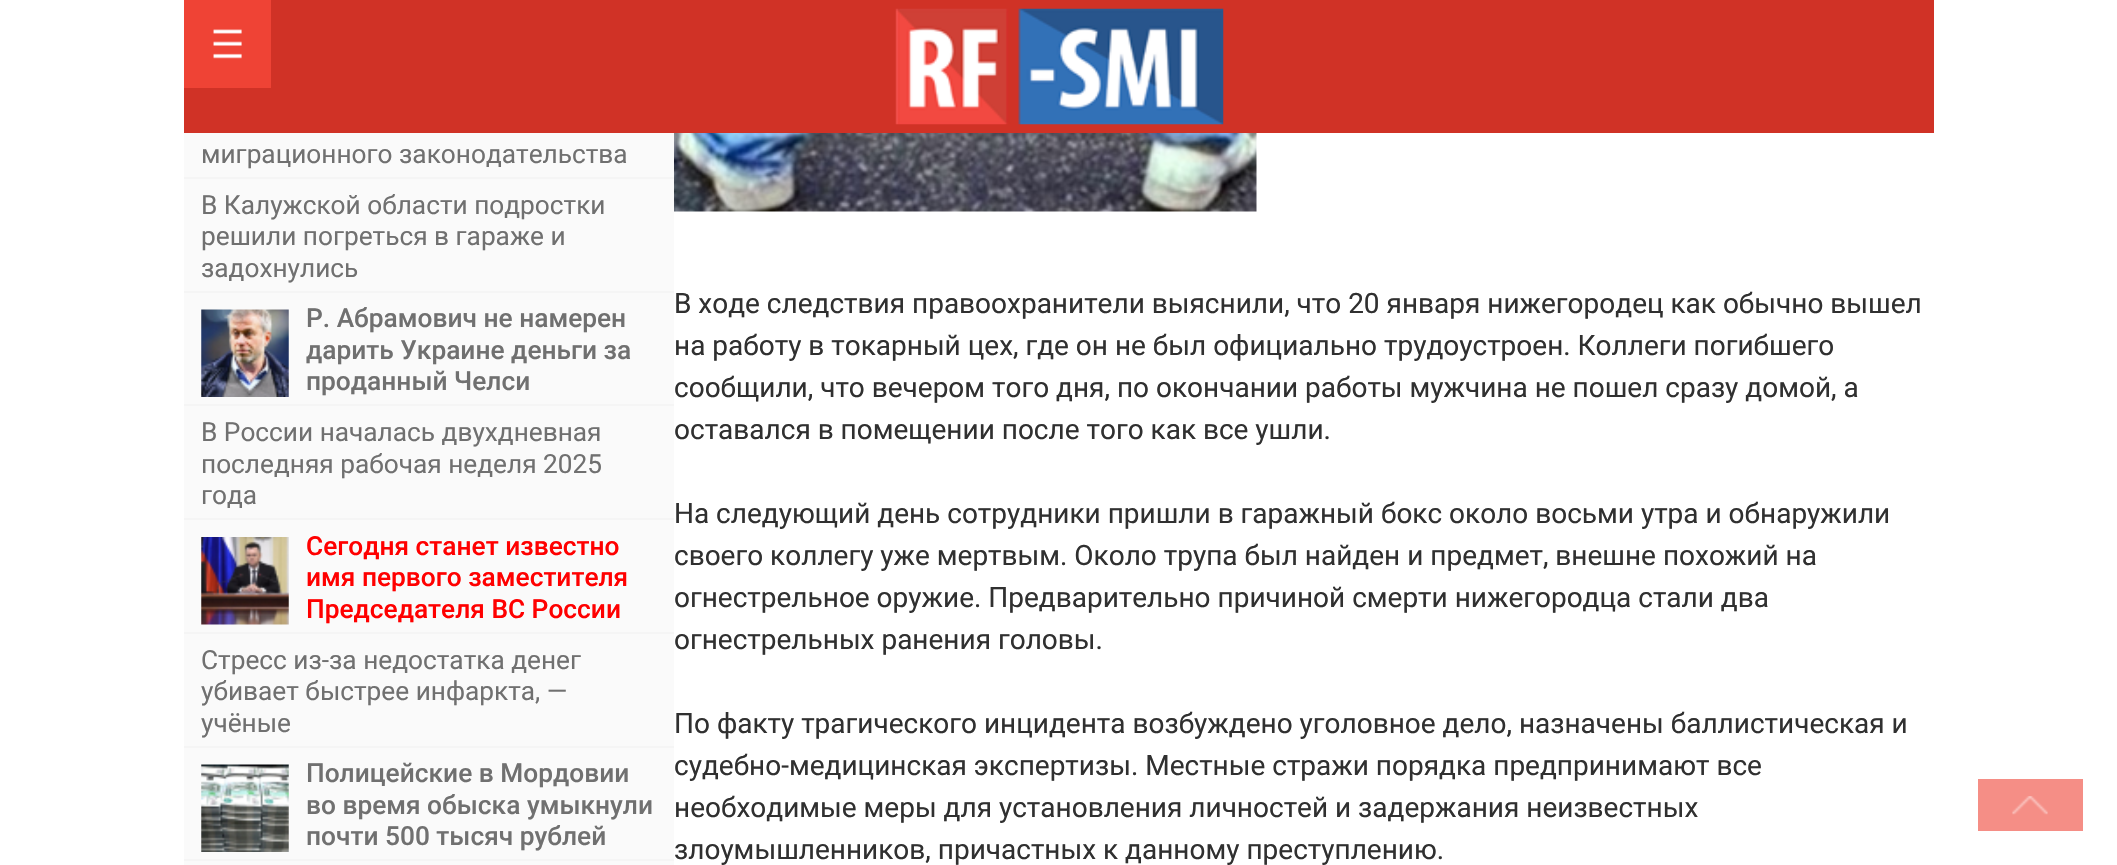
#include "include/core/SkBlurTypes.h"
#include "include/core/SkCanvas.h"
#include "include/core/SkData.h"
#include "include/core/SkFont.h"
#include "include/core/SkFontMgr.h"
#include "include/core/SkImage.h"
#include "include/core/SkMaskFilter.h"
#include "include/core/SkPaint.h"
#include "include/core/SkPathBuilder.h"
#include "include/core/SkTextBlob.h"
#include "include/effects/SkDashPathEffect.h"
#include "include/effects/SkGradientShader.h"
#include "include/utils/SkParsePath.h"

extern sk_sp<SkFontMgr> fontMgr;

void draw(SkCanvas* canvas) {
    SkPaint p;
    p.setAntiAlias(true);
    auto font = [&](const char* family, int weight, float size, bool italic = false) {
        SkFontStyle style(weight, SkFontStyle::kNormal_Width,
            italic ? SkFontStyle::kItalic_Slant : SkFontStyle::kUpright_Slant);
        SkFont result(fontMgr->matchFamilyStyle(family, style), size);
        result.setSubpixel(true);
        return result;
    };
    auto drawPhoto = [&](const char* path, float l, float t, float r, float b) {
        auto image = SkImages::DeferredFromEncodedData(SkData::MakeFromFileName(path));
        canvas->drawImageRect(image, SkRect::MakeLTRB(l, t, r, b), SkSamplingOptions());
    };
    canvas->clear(0xFFFFFFFF);
    p.setColor(0xFFD03226);
    canvas->drawRect(SkRect::MakeLTRB(184, 0, 1934, 133), p);
    p.setColor(0xFFEF4335);
    canvas->drawRect(SkRect::MakeLTRB(184, 0, 271, 88), p);
    drawPhoto("media/1.png", 213, 29, 242, 59);
    drawPhoto("media/2.png", 895, 8, 1224, 125);
    p.setColor(0xFFFAFAFA);
    canvas->drawRect(SkRect::MakeLTRB(184, 133, 674, 865), p);
    p.setColor(0xFFF5F5F5);
    canvas->drawRect(SkRect::MakeLTRB(184, 177, 674, 179), p);
    auto font1 = font("Roboto", 400, 26.25f);
    p.setColor(0xFF707070);
    canvas->drawString("миграционного законодательства", 201, 163, font1, p);
    p.setColor(0xFFF5F5F5);
    canvas->drawRect(SkRect::MakeLTRB(184, 291, 674, 293), p);
    p.setColor(0xFF707070);
    {
        const struct { const char* s; float x, y; } items[] = {
            {"В Калужской области подростки", 201, 214},
            {"решили погреться в гараже и", 201, 245},
            {"задохнулись", 201, 277},
        };
        for (auto [s, x, y] : items) {
            canvas->drawString(s, x, y, font1, p);
        }
    }
    p.setColor(0xFFF5F5F5);
    canvas->drawRect(SkRect::MakeLTRB(184, 404, 674, 406), p);
    drawPhoto("media/3.png", 201, 309, 289, 397);
    auto font2 = font("Roboto", 500, 26.25f);
    p.setColor(0xFF707070);
    {
        const struct { const char* s; float x, y; } items[] = {
            {"Р. Абрамович не намерен", 306, 327},
            {"дарить Украине деньги за", 306, 359},
            {"проданный Челси", 306, 390},
        };
        for (auto [s, x, y] : items) {
            canvas->drawString(s, x, y, font2, p);
        }
    }
    p.setColor(0xFFF5F5F5);
    canvas->drawRect(SkRect::MakeLTRB(184, 518, 674, 520), p);
    p.setColor(0xFF707070);
    {
        const struct { const char* s; float x, y; } items[] = {
            {"В России началась двухдневная", 201, 441},
            {"последняя рабочая неделя 2025", 201, 473},
            {"года", 201, 504},
        };
        for (auto [s, x, y] : items) {
            canvas->drawString(s, x, y, font1, p);
        }
    }
    p.setColor(0xFFF5F5F5);
    canvas->drawRect(SkRect::MakeLTRB(184, 632, 674, 634), p);
    drawPhoto("media/4.png", 201, 537, 289, 625);
    p.setColor(0xFFFF0000);
    {
        const struct { const char* s; float x, y; } items[] = {
            {"Сегодня станет известно", 306, 555},
            {"имя первого заместителя", 306, 586},
            {"Председателя ВС России", 306, 618},
        };
        for (auto [s, x, y] : items) {
            canvas->drawString(s, x, y, font2, p);
        }
    }
    p.setColor(0xFFF5F5F5);
    canvas->drawRect(SkRect::MakeLTRB(184, 746, 674, 748), p);
    p.setColor(0xFF707070);
    {
        const struct { const char* s; float x, y; } items[] = {
            {"Стресс из-за недостатка денег", 201, 669},
            {"убивает быстрее инфаркта, —", 201, 700},
            {"учёные", 201, 732},
        };
        for (auto [s, x, y] : items) {
            canvas->drawString(s, x, y, font1, p);
        }
    }
    p.setColor(0xFFF5F5F5);
    canvas->drawRect(SkRect::MakeLTRB(184, 859, 674, 861), p);
    drawPhoto("media/5.png", 201, 764, 289, 852);
    p.setColor(0xFF707070);
    {
        const struct { const char* s; float x, y; } items[] = {
            {"Полицейские в Мордовии", 306, 782},
            {"во время обыска умыкнули", 306, 814},
            {"почти 500 тысяч рублей", 306, 845},
        };
        for (auto [s, x, y] : items) {
            canvas->drawString(s, x, y, font2, p);
        }
    }
    drawPhoto("media/6.png", 674, 133, 1257, 212);
    auto font3 = font("Roboto", 400, 28);
    p.setColor(0xFF303030);
    {
        const struct { const char* s; float x, y; } items[] = {
            {"В ходе следствия правоохранители выяснили, что 20 января нижегородец как обычно вышел", 674, 313},
            {"на работу в токарный цех, где он не был официально трудоустроен. Коллеги погибшего", 674, 355},
            {"сообщили, что вечером того дня, по окончании работы мужчина не пошел сразу домой, а", 674, 397},
            {"оставался в помещении после того как все ушли.", 674, 439},
            {"На следующий день сотрудники пришли в гаражный бокс около восьми утра и обнаружили", 674, 523},
            {"своего коллегу уже мертвым. Около трупа был найден и предмет, внешне похожий на", 674, 565},
            {"огнестрельное оружие. Предварительно причиной смерти нижегородца стали два", 674, 607},
            {"огнестрельных ранения головы.", 674, 649},
            {"По факту трагического инцидента возбуждено уголовное дело, назначены баллистическая и", 674, 733},
            {"судебно-медицинская экспертизы. Местные стражи порядка предпринимают все", 674, 775},
            {"необходимые меры для установления личностей и задержания неизвестных", 674, 817},
            {"злоумышленников, причастных к данному преступлению.", 674, 859},
        };
        for (auto [s, x, y] : items) {
            canvas->drawString(s, x, y, font3, p);
        }
    }
    p.setColor(0xFFF58E86);
    canvas->drawRect(SkRect::MakeLTRB(1978, 779, 2083, 831), p);
    drawPhoto("media/7.png", 2012, 796, 2048, 815);
}
